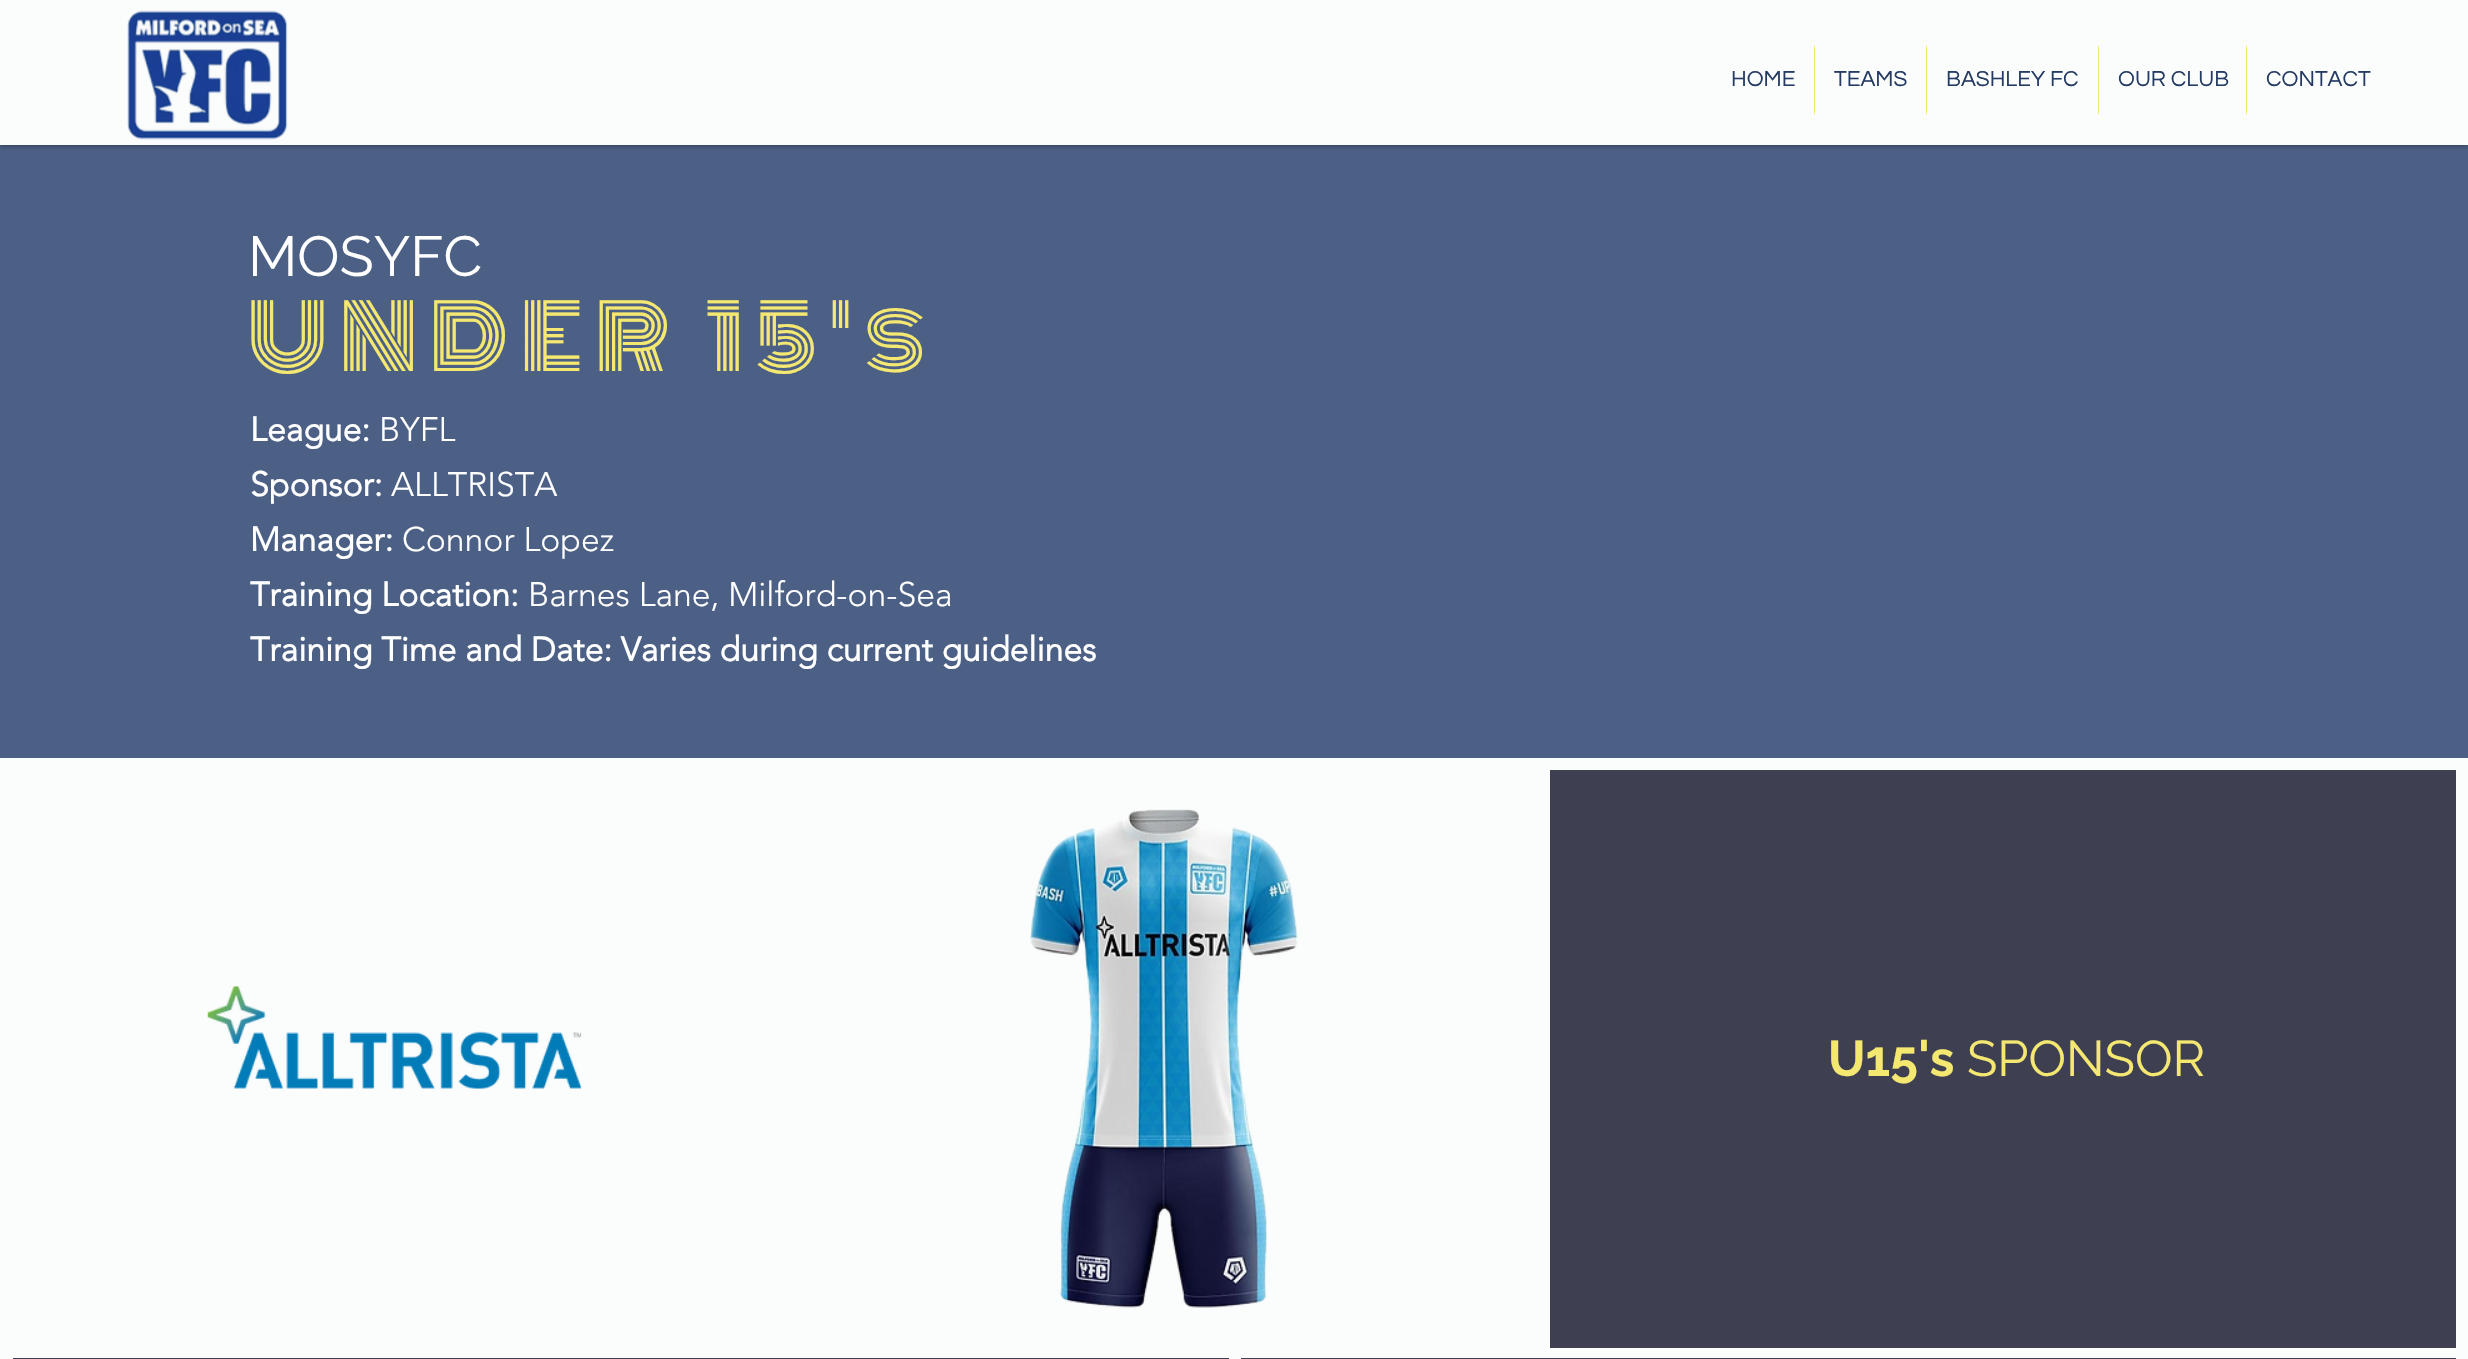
#include "include/core/SkBlurTypes.h"
#include "include/core/SkCanvas.h"
#include "include/core/SkData.h"
#include "include/core/SkFont.h"
#include "include/core/SkFontMgr.h"
#include "include/core/SkImage.h"
#include "include/core/SkMaskFilter.h"
#include "include/core/SkPaint.h"
#include "include/core/SkPathBuilder.h"
#include "include/core/SkTextBlob.h"
#include "include/effects/SkDashPathEffect.h"
#include "include/effects/SkGradientShader.h"
#include "include/utils/SkParsePath.h"

extern sk_sp<SkFontMgr> fontMgr;

void draw(SkCanvas* canvas) {
    SkPaint p;
    p.setAntiAlias(true);
    auto font = [&](const char* family, int weight, float size, bool italic = false) {
        SkFontStyle style(weight, SkFontStyle::kNormal_Width,
            italic ? SkFontStyle::kItalic_Slant : SkFontStyle::kUpright_Slant);
        SkFont result(fontMgr->matchFamilyStyle(family, style), size);
        result.setSubpixel(true);
        return result;
    };
    auto drawTracked = [&](const char* s, float x, float y, const SkFont& font, const SkPaint& ink, float letter, float word) {
        std::vector<SkGlyphID> glyphs(font.countText(s, strlen(s), SkTextEncoding::kUTF8));
        std::vector<float> xs(glyphs.size());
        font.textToGlyphs(s, strlen(s), SkTextEncoding::kUTF8, glyphs);
        font.getXPos(glyphs, xs, x);
        float extra = 0;
        for (size_t i = 0; i < glyphs.size(); i++) {
            xs[i] += extra;
            extra += letter + word * (glyphs[i] == font.unicharToGlyph(' '));
        }
        canvas->drawTextBlob(SkTextBlob::MakeFromPosHGlyphs(glyphs, xs, y, font), 0, 0, ink);
    };
    auto drawPhoto = [&](const char* path, float l, float t, float r, float b) {
        auto image = SkImages::DeferredFromEncodedData(SkData::MakeFromFileName(path));
        canvas->drawImageRect(image, SkRect::MakeLTRB(l, t, r, b), SkSamplingOptions());
    };
    canvas->clear(0xFFFBFDFD);
    p.setColor(0xFF4C6085);
    canvas->drawRect(SkRect::MakeLTRB(0, 145, 2468, 758), p);
    canvas->save();
    canvas->clipRect(SkRect::MakeLTRB(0, 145, 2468, 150));
    p.setColor(0x80000000);
    p.setMaskFilter(SkMaskFilter::MakeBlur(kNormal_SkBlurStyle, 3));
    canvas->drawRect(SkRect::MakeLTRB(0, 0, 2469, 145), p);
    p.setMaskFilter(nullptr);
    canvas->restore();
    drawPhoto("media/1.png", 127, 10, 288, 140);
    auto font1 = font("Questrial", 400, 22.5f);
    p.setColor(0xFF253B63);
    canvas->drawString("HOME", 1731, 86, font1, p);
    p.setColor(0xFFF5E871);
    canvas->drawRect(SkRect::MakeLTRB(1814, 46, 1815, 114), p);
    p.setColor(0xFF253B63);
    canvas->drawString("TEAMS", 1834, 86, font1, p);
    p.setColor(0xFFF5E871);
    canvas->drawRect(SkRect::MakeLTRB(1926, 46, 1927, 114), p);
    p.setColor(0xFF253B63);
    canvas->drawString("BASHLEY FC", 1946, 86, font1, p);
    p.setColor(0xFFF5E871);
    canvas->drawRect(SkRect::MakeLTRB(2098, 46, 2099, 114), p);
    p.setColor(0xFF253B63);
    canvas->drawString("OUR CLUB", 2118, 86, font1, p);
    p.setColor(0xFFF5E871);
    canvas->drawRect(SkRect::MakeLTRB(2246, 46, 2247, 114), p);
    p.setColor(0xFF253B63);
    canvas->drawString("CONTACT", 2266, 86, font1, p);
    auto font2 = font("Raleway", 400, 56.25f);
    p.setColor(0xFFFFFFFF);
    canvas->drawString("MOSYFC", 248, 276, font2, p);
    auto font3 = font("Monoton", 400, 87.5f);
    p.setColor(0xFFF5E871);
    drawTracked("UNDER 15's", 248, 371, font3, p, 13.1f, 0);
    auto font4 = font("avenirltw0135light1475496", 700, 33.75f);
    p.setColor(0xFFFFFFFF);
    canvas->drawString("League:", 250, 441, font4, p);
    auto font5 = font("avenirltw0135light1475496", 300, 33.75f);
    canvas->drawString("BYFL", 379, 441, font5, p);
    canvas->drawString("Sponsor:", 250, 496, font4, p);
    canvas->drawString("ALLTRISTA", 391, 496, font5, p);
    canvas->drawString("Manager:", 250, 551, font4, p);
    canvas->drawString("Connor Lopez", 402, 551, font5, p);
    canvas->drawString("Training Location:", 250, 606, font4, p);
    canvas->drawString("Barnes Lane, Milford-on-Sea", 528, 606, font5, p);
    canvas->drawString("Training Time and Date: Varies during current guidelines", 250, 661, font4, p);
    drawPhoto("media/2.png", 207, 986, 582, 1089);
    drawPhoto("media/3.png", 1030, 809, 1298, 1308);
    p.setColor(0xFF3E4052);
    canvas->drawRect(SkRect::MakeLTRB(1550, 770, 2456, 1348), p);
    auto font6 = font("Raleway", 700, 50);
    p.setColor(0xFFF5E871);
    canvas->drawString("U15's", 1828, 1076, font6, p);
    auto font7 = font("Raleway", 400, 50);
    canvas->drawString("SPONSOR", 1967, 1076, font7, p);
    p.setColor(0xFF3E4052);
    canvas->drawRect(SkRect::MakeLTRB(13, 1358, 1229, 1359), p);
    canvas->drawRect(SkRect::MakeLTRB(1241, 1358, 2456, 1359), p);
}
